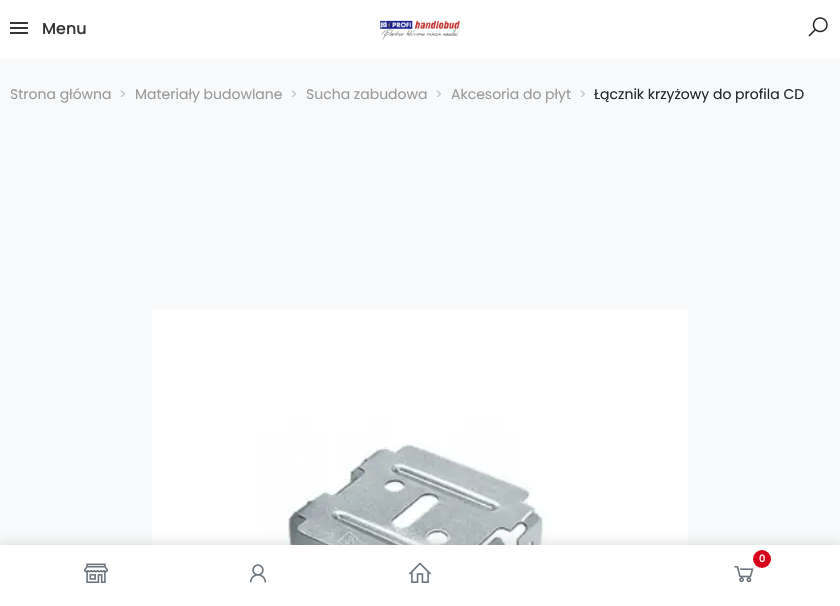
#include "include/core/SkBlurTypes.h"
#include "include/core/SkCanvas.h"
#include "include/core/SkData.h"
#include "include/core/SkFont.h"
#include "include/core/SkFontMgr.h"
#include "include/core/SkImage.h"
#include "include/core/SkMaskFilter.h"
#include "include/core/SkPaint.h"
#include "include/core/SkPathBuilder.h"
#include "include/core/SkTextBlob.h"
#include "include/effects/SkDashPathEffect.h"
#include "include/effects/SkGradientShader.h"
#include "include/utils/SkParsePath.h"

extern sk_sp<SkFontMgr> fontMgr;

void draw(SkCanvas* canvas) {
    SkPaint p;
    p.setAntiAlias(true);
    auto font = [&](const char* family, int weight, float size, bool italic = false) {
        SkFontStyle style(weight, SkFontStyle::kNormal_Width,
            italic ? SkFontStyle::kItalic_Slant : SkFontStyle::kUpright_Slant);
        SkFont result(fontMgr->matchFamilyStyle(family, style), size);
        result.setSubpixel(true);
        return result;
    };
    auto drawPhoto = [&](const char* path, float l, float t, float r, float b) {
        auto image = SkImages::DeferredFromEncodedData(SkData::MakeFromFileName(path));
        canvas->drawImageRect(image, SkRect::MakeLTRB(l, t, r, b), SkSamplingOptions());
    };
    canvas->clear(0xFFF8F9FA);
    {
        const struct { float l, t, r, b; SkColor color; } items[] = {
            {0, 0, 840, 59, 0xFFFFFFFF},
            {10, 22, 28, 24, 0xFF353535},
            {10, 27, 28, 29, 0xFF353535},
            {10, 32, 28, 34, 0xFF353535},
        };
        for (auto [l, t, r, b, color] : items) {
            p.setColor(color);
            canvas->drawRect(SkRect::MakeLTRB(l, t, r, b), p);
        }
    }
    auto font1 = font("Poppins", 500, 16);
    canvas->drawString("Menu", 42, 34, font1, p);
    drawPhoto("media/1.png", 380, 20, 460, 40);
    drawPhoto("media/2.png", 808, 17, 828, 37);
    drawPhoto("media/7.png", 152, 309, 688, 545);
    p.setColor(0x4D909090);
    p.setMaskFilter(SkMaskFilter::MakeBlur(kNormal_SkBlurStyle, 6));
    canvas->drawRect(SkRect::MakeLTRB(-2, 544, 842, 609), p);
    p.setMaskFilter(nullptr);
    p.setColor(0xFFFFFFFF);
    canvas->drawRect(SkRect::MakeLTRB(0, 545, 840, 606), p);
    drawPhoto("media/3.png", 734, 565, 754, 583);
    p.setColor(0xFFD7021A);
    canvas->drawCircle(762, 559, 9, p);
    auto font2 = font("Poppins", 500, 10);
    p.setColor(0xFFFFFFFF);
    canvas->drawString("0", 759, 562, font2, p);
    drawPhoto("media/4.png", 83, 563, 109, 583);
    drawPhoto("media/5.png", 249, 564, 267, 583);
    drawPhoto("media/6.png", 409, 562, 431, 583);
    auto font3 = font("Poppins", 400, 14);
    p.setColor(0xFF9A9A9A);
    canvas->drawString("Strona główna", 10, 99, font3, p);
    p.setColor(0xFFC0C4C8);
    canvas->drawString(">", 119, 99, font3, p);
    p.setColor(0xFF9A9A9A);
    canvas->drawString("Materiały budowlane", 135, 99, font3, p);
    p.setColor(0xFFC0C4C8);
    canvas->drawString(">", 290, 99, font3, p);
    p.setColor(0xFF9A9A9A);
    canvas->drawString("Sucha zabudowa", 306, 99, font3, p);
    p.setColor(0xFFC0C4C8);
    canvas->drawString(">", 435, 99, font3, p);
    p.setColor(0xFF9A9A9A);
    canvas->drawString("Akcesoria do płyt", 451, 99, font3, p);
    p.setColor(0xFFC0C4C8);
    canvas->drawString(">", 579, 99, font3, p);
    p.setColor(0xFF23272B);
    canvas->drawString("Łącznik krzyżowy do profila CD", 594, 99, font3, p);
}
